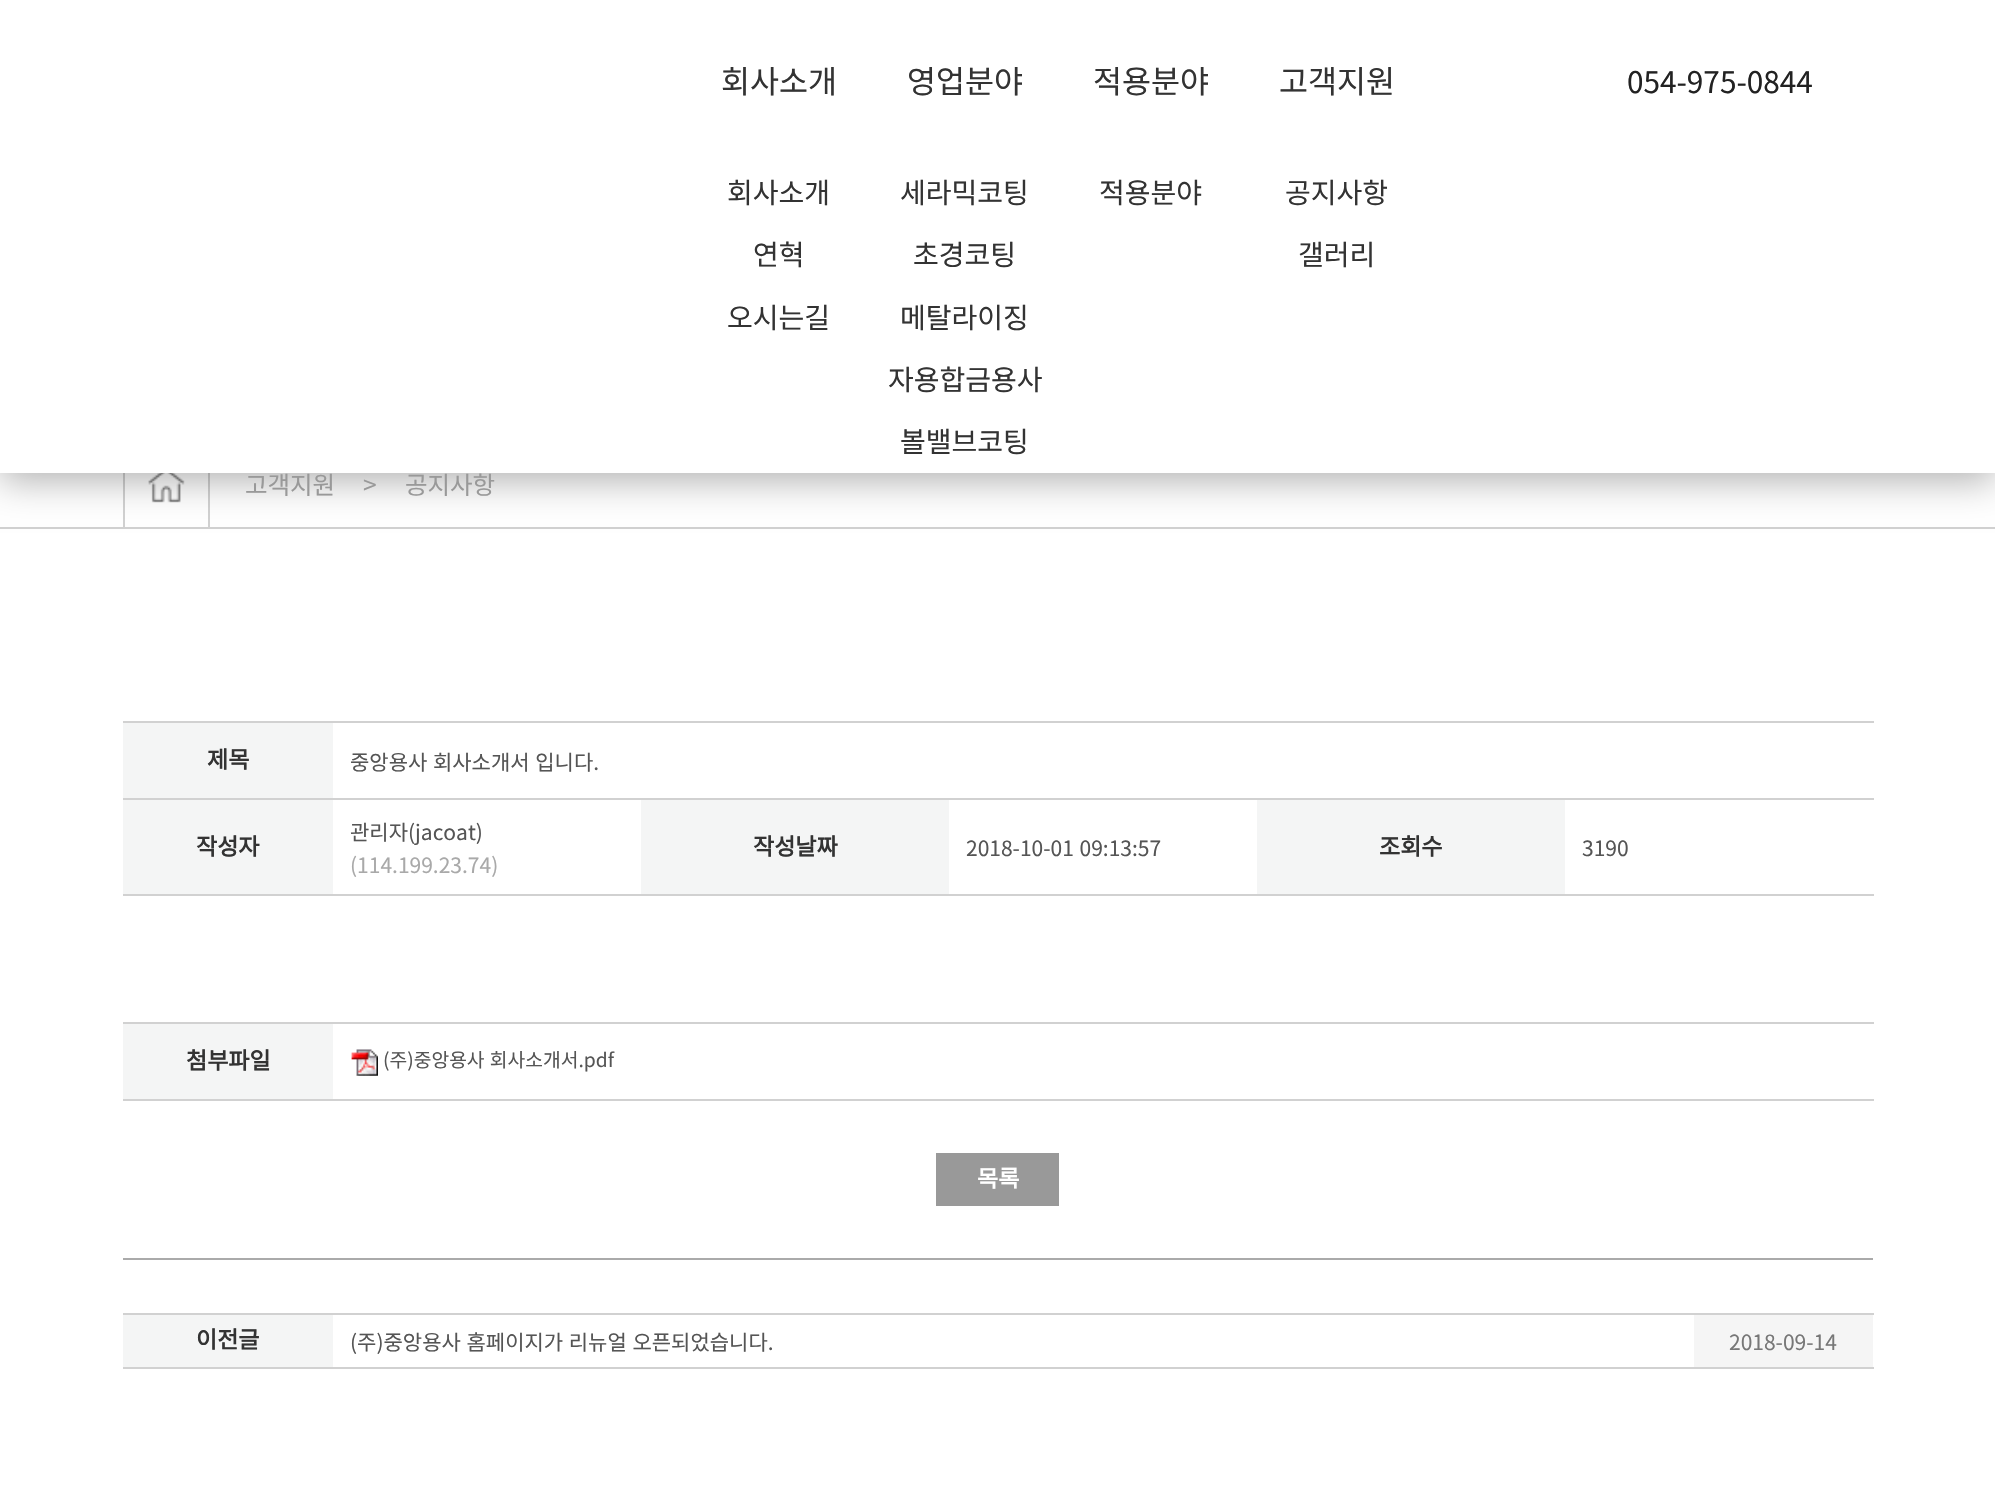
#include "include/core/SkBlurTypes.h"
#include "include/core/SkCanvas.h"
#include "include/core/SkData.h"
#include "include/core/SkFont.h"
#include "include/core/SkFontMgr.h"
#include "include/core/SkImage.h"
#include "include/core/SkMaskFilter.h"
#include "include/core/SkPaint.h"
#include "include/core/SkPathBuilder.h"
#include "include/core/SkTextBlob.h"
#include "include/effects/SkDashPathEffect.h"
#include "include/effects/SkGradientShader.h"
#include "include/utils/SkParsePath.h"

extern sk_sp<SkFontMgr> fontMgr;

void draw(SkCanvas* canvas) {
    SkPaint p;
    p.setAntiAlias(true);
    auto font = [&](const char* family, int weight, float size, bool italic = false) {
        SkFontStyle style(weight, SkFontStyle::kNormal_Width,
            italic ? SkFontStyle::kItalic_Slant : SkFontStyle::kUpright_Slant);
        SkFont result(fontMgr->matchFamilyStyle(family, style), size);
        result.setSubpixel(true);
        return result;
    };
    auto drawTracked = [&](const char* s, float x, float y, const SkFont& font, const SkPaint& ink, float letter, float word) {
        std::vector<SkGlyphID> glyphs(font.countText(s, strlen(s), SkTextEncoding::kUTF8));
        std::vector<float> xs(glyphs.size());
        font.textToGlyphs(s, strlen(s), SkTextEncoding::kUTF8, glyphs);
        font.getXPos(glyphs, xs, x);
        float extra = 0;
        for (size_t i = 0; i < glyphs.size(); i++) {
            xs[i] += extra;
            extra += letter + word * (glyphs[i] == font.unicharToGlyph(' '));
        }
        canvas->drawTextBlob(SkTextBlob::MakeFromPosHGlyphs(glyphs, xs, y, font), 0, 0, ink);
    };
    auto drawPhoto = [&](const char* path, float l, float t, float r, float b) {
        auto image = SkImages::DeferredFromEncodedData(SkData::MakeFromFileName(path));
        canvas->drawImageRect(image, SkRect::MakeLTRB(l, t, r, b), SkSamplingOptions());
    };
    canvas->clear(0xFFFFFFFF);
    p.setColor(0xFFD1D1D1);
    canvas->drawRect(SkRect::MakeLTRB(0, 527, 1995, 529), p);
    canvas->drawRect(SkRect::MakeLTRB(123, 473, 125, 527), p);
    drawPhoto("media/1.png", 148, 473, 185, 503);
    canvas->drawRect(SkRect::MakeLTRB(208, 473, 210, 527), p);
    p.setColor(0x4D000000);
    p.setMaskFilter(SkMaskFilter::MakeBlur(kNormal_SkBlurStyle, 17.5f));
    canvas->drawRect(SkRect::MakeLTRB(0, 9, 1995, 481), p);
    p.setMaskFilter(nullptr);
    p.setColor(0xFFFFFFFF);
    canvas->drawRect(SkRect::MakeLTRB(0, 0, 1995, 473), p);
    auto font1 = font("Noto Sans KR", 100, 31.5f);
    p.setColor(0xFF333333);
    canvas->drawString("회사소개", 721, 93, font1, p);
    auto font2 = font("Noto Sans KR", 100, 28);
    {
        const struct { const char* s; float x, y; } items[] = {
            {"회사소개", 727, 203},
            {"연혁", 753, 265},
            {"오시는길", 727, 328},
        };
        for (auto [s, x, y] : items) {
            canvas->drawString(s, x, y, font2, p);
        }
    }
    canvas->drawString("영업분야", 907, 93, font1, p);
    {
        const struct { const char* s; float x, y; } items[] = {
            {"세라믹코팅", 900, 203},
            {"초경코팅", 913, 265},
            {"메탈라이징", 900, 328},
            {"자용합금용사", 888, 390},
            {"볼밸브코팅", 900, 452},
        };
        for (auto [s, x, y] : items) {
            canvas->drawString(s, x, y, font2, p);
        }
    }
    canvas->drawString("적용분야", 1093, 93, font1, p);
    canvas->drawString("적용분야", 1099, 203, font2, p);
    canvas->drawString("고객지원", 1279, 93, font1, p);
    canvas->drawString("공지사항", 1285, 203, font2, p);
    canvas->drawString("갤러리", 1298, 265, font2, p);
    auto font3 = font("Noto Sans KR", 100, 29.75f);
    p.setColor(0xFF222222);
    canvas->drawString("054-975-0844", 1627, 93, font3, p);
    auto font4 = font("Noto Sans KR", 100, 24.5f);
    p.setColor(0xFF999999);
    {
        const struct { const char* s; float x, y; } items[] = {
            {"고객지원", 245, 494},
            {">", 363, 494},
            {"공지사항", 405, 494},
        };
        for (auto [s, x, y] : items) {
            canvas->drawString(s, x, y, font4, p);
        }
    }
    p.setColor(0xFFF4F5F5);
    canvas->drawRect(SkRect::MakeLTRB(123, 723, 333, 798), p);
    auto font5 = font("Noto Sans KR", 700, 23);
    p.setColor(0xFF333333);
    canvas->drawString("제목", 207, 768, font5, p);
    p.setColor(0xFFD1D1D1);
    canvas->drawRect(SkRect::MakeLTRB(123, 721, 1874, 723), p);
    auto font6 = font("Noto Sans KR", 100, 21);
    p.setColor(0xFF555555);
    drawTracked("중앙용사 회사소개서 입니다.", 350, 770, font6, p, 0, 1);
    p.setColor(0xFFF4F5F5);
    canvas->drawRect(SkRect::MakeLTRB(123, 800, 333, 894), p);
    p.setColor(0xFF333333);
    canvas->drawString("작성자", 196, 855, font5, p);
    p.setColor(0xFF555555);
    canvas->drawString("관리자(jacoat)", 350, 840, font6, p);
    p.setColor(0xFFA9A9A9);
    canvas->drawString("(114.199.23.74)", 350, 873, font6, p);
    p.setColor(0xFFF4F5F5);
    canvas->drawRect(SkRect::MakeLTRB(641, 800, 949, 894), p);
    p.setColor(0xFF333333);
    canvas->drawString("작성날짜", 753, 855, font5, p);
    p.setColor(0xFF555555);
    drawTracked("2018-10-01 09:13:57", 966, 856, font6, p, 0, 1);
    p.setColor(0xFFF4F5F5);
    canvas->drawRect(SkRect::MakeLTRB(1257, 800, 1565, 894), p);
    p.setColor(0xFF333333);
    canvas->drawString("조회수", 1379, 855, font5, p);
    p.setColor(0xFFD1D1D1);
    canvas->drawRect(SkRect::MakeLTRB(123, 798, 1874, 800), p);
    p.setColor(0xFF555555);
    canvas->drawString("3190", 1582, 856, font6, p);
    p.setColor(0xFFD1D1D1);
    canvas->drawRect(SkRect::MakeLTRB(123, 894, 1874, 896), p);
    p.setColor(0xFFF4F5F5);
    canvas->drawRect(SkRect::MakeLTRB(123, 1024, 333, 1099), p);
    p.setColor(0xFF333333);
    canvas->drawString("첨부파일", 186, 1069, font5, p);
    p.setColor(0xFFD1D1D1);
    canvas->drawRect(SkRect::MakeLTRB(123, 1022, 1874, 1024), p);
    canvas->drawRect(SkRect::MakeLTRB(123, 1099, 1874, 1101), p);
    drawPhoto("media/2.png", 351, 1049, 378, 1076);
    auto font7 = font("Noto Sans KR", 100, 19.25f);
    p.setColor(0xFF555555);
    drawTracked("(주)중앙용사 회사소개서.pdf", 383, 1067, font7, p, 0, 1);
    p.setColor(0xFF999999);
    canvas->drawRect(SkRect::MakeLTRB(936, 1153, 1059, 1206), p);
    p.setColor(0xFFFFFFFF);
    canvas->drawString("목록", 977, 1187, font5, p);
    p.setColor(0xFFAAAAAA);
    canvas->drawRect(SkRect::MakeLTRB(123, 1258, 1873, 1260), p);
    p.setColor(0xFFF4F5F5);
    canvas->drawRect(SkRect::MakeLTRB(123, 1315, 333, 1367), p);
    p.setColor(0xFF333333);
    canvas->drawString("이전글", 196, 1348, font5, p);
    p.setColor(0xFF555555);
    drawTracked("(주)중앙용사 홈페이지가 리뉴얼 오픈되었습니다.", 350, 1350, font6, p, 0, 1);
    {
        const struct { float l, t, r, b; SkColor color; } items[] = {
            {1694, 1315, 1873, 1367, 0xFFF5F5F5},
            {123, 1313, 1874, 1315, 0xFFD1D1D1},
            {123, 1367, 1874, 1369, 0xFFD1D1D1},
        };
        for (auto [l, t, r, b, color] : items) {
            p.setColor(color);
            canvas->drawRect(SkRect::MakeLTRB(l, t, r, b), p);
        }
    }
    p.setColor(0xFF777777);
    canvas->drawString("2018-09-14", 1729, 1350, font6, p);
}
